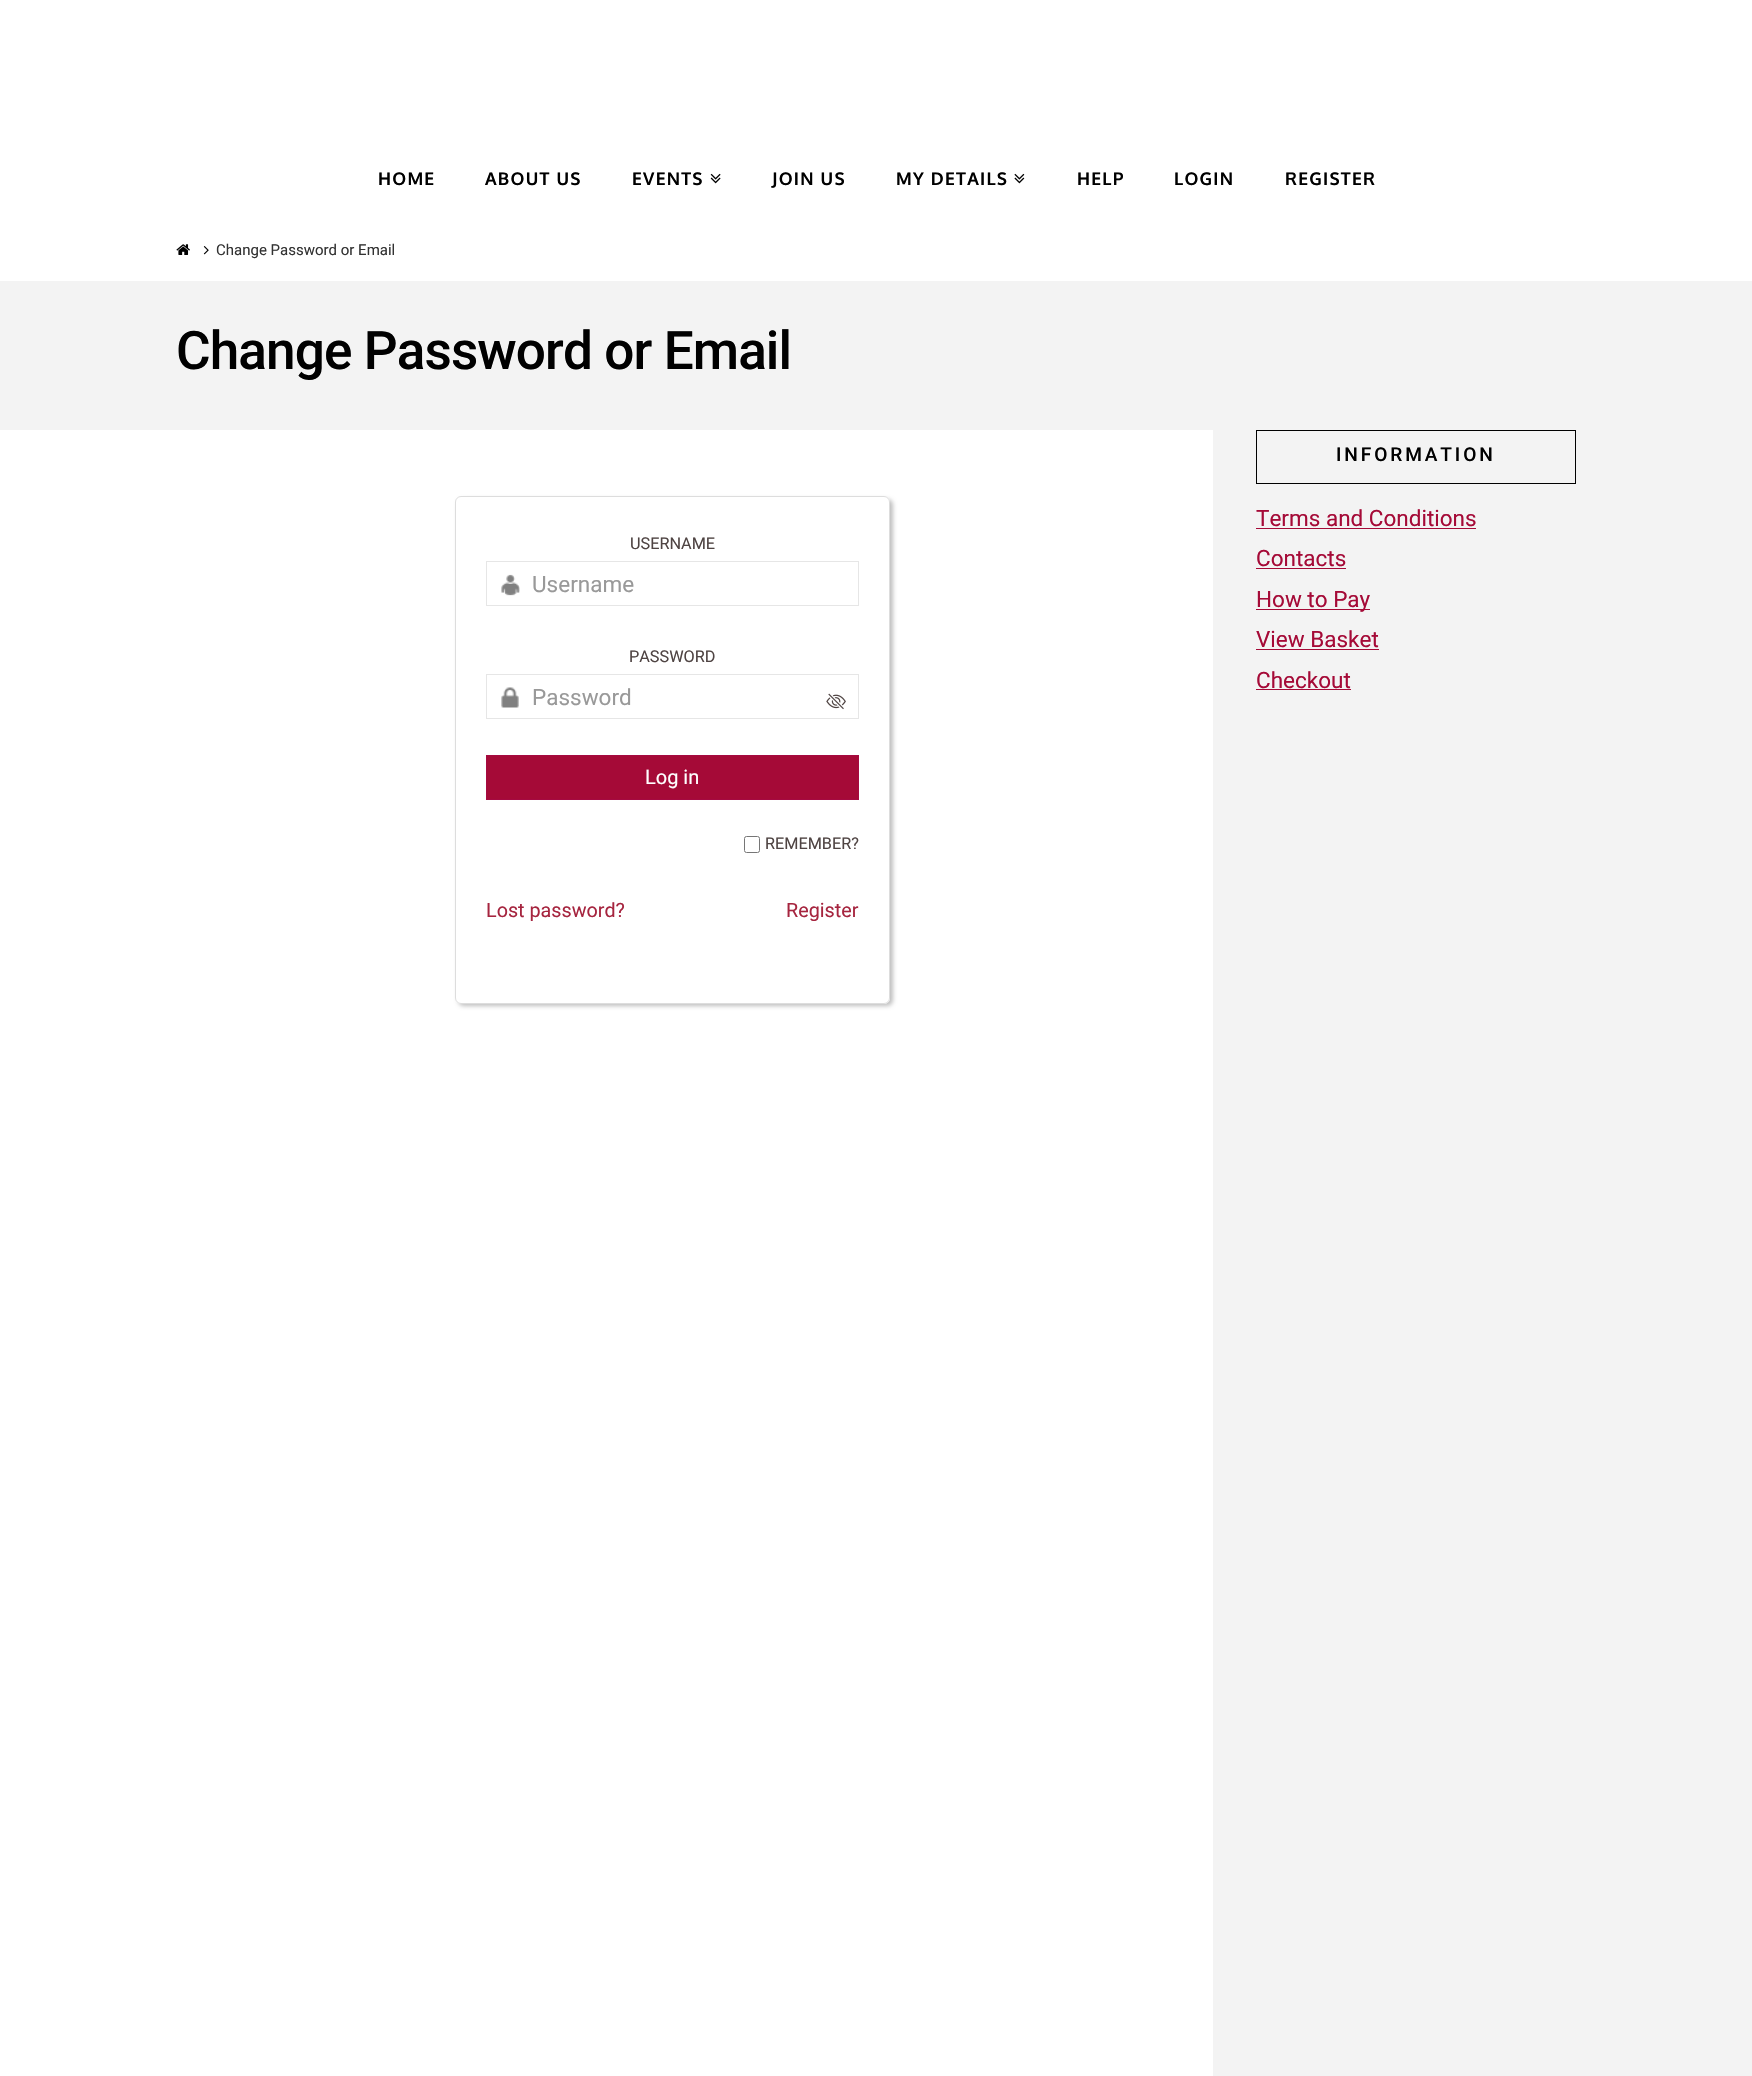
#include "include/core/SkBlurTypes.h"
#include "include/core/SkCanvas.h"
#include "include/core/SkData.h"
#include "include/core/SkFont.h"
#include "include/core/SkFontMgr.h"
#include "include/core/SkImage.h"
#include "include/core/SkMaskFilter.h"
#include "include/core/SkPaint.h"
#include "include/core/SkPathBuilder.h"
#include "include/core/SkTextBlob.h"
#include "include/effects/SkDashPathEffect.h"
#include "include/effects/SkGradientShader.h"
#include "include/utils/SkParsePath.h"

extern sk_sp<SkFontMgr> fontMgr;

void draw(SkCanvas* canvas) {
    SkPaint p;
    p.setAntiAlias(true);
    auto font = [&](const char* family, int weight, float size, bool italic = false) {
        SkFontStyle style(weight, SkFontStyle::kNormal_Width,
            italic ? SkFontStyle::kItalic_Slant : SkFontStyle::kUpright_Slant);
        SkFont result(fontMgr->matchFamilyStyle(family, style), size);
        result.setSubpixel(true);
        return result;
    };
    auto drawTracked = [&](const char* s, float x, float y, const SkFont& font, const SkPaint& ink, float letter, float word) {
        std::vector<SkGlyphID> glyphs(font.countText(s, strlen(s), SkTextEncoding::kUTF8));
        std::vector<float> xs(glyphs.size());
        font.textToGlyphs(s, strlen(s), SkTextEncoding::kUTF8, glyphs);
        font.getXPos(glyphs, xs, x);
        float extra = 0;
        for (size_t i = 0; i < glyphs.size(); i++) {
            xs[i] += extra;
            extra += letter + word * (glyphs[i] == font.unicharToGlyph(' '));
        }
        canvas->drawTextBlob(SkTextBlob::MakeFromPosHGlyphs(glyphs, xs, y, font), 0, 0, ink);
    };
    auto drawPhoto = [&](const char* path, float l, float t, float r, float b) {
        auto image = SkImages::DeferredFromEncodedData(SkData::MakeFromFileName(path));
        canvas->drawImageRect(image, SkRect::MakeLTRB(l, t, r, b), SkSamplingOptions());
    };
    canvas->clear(0xFFF3F3F3);
    p.setColor(0xFFFFFFFF);
    canvas->drawRect(SkRect::MakeLTRB(0, 0, 1752, 220), p);
    auto font1 = font("Oxygen", 700, 17.5f);
    p.setColor(0xFF000000);
    {
        const struct { const char* s; float x, y; } items[] = {
            {"HOME", 378, 185},
            {"ABOUT US", 485, 185},
            {"EVENTS", 632, 185},
        };
        for (auto [s, x, y] : items) {
            drawTracked(s, x, y, font1, p, 1.25f, 0);
        }
    }
    drawPhoto("media/1.png", 710, 173, 721, 184);
    drawTracked("JOIN US", 772, 185, font1, p, 1.25f, 0);
    drawTracked("MY DETAILS", 896, 185, font1, p, 1.25f, 0);
    drawPhoto("media/2.png", 1014, 173, 1025, 184);
    {
        const struct { const char* s; float x, y; } items[] = {
            {"HELP", 1077, 185},
            {"LOGIN", 1174, 185},
            {"REGISTER", 1285, 185},
        };
        for (auto [s, x, y] : items) {
            drawTracked(s, x, y, font1, p, 1.25f, 0);
        }
    }
    p.setColor(0xFFFFFFFF);
    canvas->drawRect(SkRect::MakeLTRB(0, 220, 1752, 281), p);
    drawPhoto("media/3.png", 176, 244, 190, 255);
    drawPhoto("media/4.png", 203, 246, 209, 255);
    auto font2 = font("Roboto", 400, 15);
    p.setColor(0xFF333333);
    canvas->drawString("Change Password or Email", 216, 255, font2, p);
    auto font3 = font("Roboto", 500, 53.1f);
    p.setColor(0xFF000000);
    drawTracked("Change Password or Email", 176, 369, font3, p, -0.9f, 0);
    p.setColor(0xFFFFFFFF);
    canvas->drawRect(SkRect::MakeLTRB(0, 430, 1213, 2076), p);
    canvas->save();
    canvas->clipPath(SkPathBuilder(SkPathFillType::kEvenOdd).moveTo(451, 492).lineTo(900, 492).lineTo(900, 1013).lineTo(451, 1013).close().moveTo(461, 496).lineTo(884, 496).cubicTo(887.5f, 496, 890, 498.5f, 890, 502).lineTo(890, 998).cubicTo(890, 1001.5f, 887.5f, 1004, 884, 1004).lineTo(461, 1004).cubicTo(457.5f, 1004, 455, 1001.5f, 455, 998).lineTo(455, 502).cubicTo(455, 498.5f, 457.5f, 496, 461, 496).close().detach(), true);
    p.setColor(0x40000000);
    p.setMaskFilter(SkMaskFilter::MakeBlur(kNormal_SkBlurStyle, 2));
    canvas->drawRoundRect(SkRect::MakeLTRB(458, 499, 893, 1006), 6, 6, p);
    p.setMaskFilter(nullptr);
    canvas->restore();
    p.setStyle(SkPaint::kStroke_Style);
    p.setStrokeWidth(1);
    p.setColor(0xFFDDDDDD);
    canvas->drawRoundRect(SkRect::MakeLTRB(455.5f, 496.5f, 889.5f, 1003.5f), 5.5f, 5.5f, p);
    auto font4 = font("Roboto", 400, 16.25f);
    p.setStyle(SkPaint::kFill_Style);
    p.setColor(0xFF4F4443);
    canvas->drawString("USERNAME", 630, 549, font4, p);
    drawPhoto("media/5.png", 501, 574, 520, 596);
    p.setStyle(SkPaint::kStroke_Style);
    p.setColor(0xFFE6E6E6);
    canvas->drawRect(SkRect::MakeLTRB(486.5f, 561.5f, 858.5f, 605.5f), p);
    auto font5 = font("Roboto", 400, 22.5f);
    p.setStyle(SkPaint::kFill_Style);
    p.setColor(0xFF999999);
    canvas->drawString("Username", 532, 592, font5, p);
    p.setColor(0xFF4F4443);
    canvas->drawString("PASSWORD", 629, 662, font4, p);
    drawPhoto("media/6.png", 501, 687, 519, 708);
    p.setStyle(SkPaint::kStroke_Style);
    p.setColor(0xFFE6E6E6);
    canvas->drawRect(SkRect::MakeLTRB(486.5f, 674.5f, 858.5f, 718.5f), p);
    p.setStyle(SkPaint::kFill_Style);
    p.setColor(0xFF999999);
    canvas->drawString("Password", 532, 705, font5, p);
    drawPhoto("media/7.png", 826, 693, 846, 710);
    p.setColor(0xFFA50A37);
    canvas->drawRect(SkRect::MakeLTRB(486.5f, 755.5f, 858.5f, 799.5f), p);
    p.setStyle(SkPaint::kStroke_Style);
    p.setColor(0xFFA50A41);
    canvas->drawRect(SkRect::MakeLTRB(486.5f, 755.5f, 858.5f, 799.5f), p);
    auto font6 = font("Roboto", 400, 20);
    p.setStyle(SkPaint::kFill_Style);
    p.setColor(0xFFFFFFFF);
    canvas->drawString("Log in", 645, 784, font6, p);
    p.setStyle(SkPaint::kStroke_Style);
    p.setColor(0xFF767676);
    canvas->drawRoundRect(SkRect::MakeLTRB(744.5f, 836.5f, 759.5f, 852.5f), 2, 2, p);
    p.setStyle(SkPaint::kFill_Style);
    p.setColor(0xFF4F4443);
    canvas->drawString("REMEMBER?", 765, 849, font4, p);
    auto font7 = font("Roboto", 400, 19.75f);
    p.setColor(0xFFA6253F);
    canvas->drawString("Lost password?", 486, 917, font7, p);
    canvas->drawString("Register", 786, 917, font7, p);
    p.setStyle(SkPaint::kStroke_Style);
    p.setColor(0xFF000000);
    canvas->drawRect(SkRect::MakeLTRB(1256.5f, 430.5f, 1575.5f, 483.5f), p);
    auto font8 = font("Roboto", 500, 19.1f);
    p.setStyle(SkPaint::kFill_Style);
    drawTracked("INFORMATION", 1336, 461, font8, p, 2.9f, 0);
    p.setColor(0xFFA50A37);
    canvas->drawString("Terms and Conditions", 1256, 526, font5, p);
    canvas->drawRect(SkRect::MakeLTRB(1256, 528, 1476, 529), p);
    canvas->drawString("Contacts", 1256, 566, font5, p);
    canvas->drawRect(SkRect::MakeLTRB(1256, 568, 1346, 569), p);
    canvas->drawRect(SkRect::MakeLTRB(1256, 609, 1370, 610), p);
    canvas->drawString("How to Pay", 1256, 607, font5, p);
    canvas->drawString("View Basket", 1256, 647, font5, p);
    canvas->drawRect(SkRect::MakeLTRB(1256, 649, 1379, 650), p);
    canvas->drawString("Checkout", 1256, 688, font5, p);
    canvas->drawRect(SkRect::MakeLTRB(1256, 689, 1351, 690), p);
}
